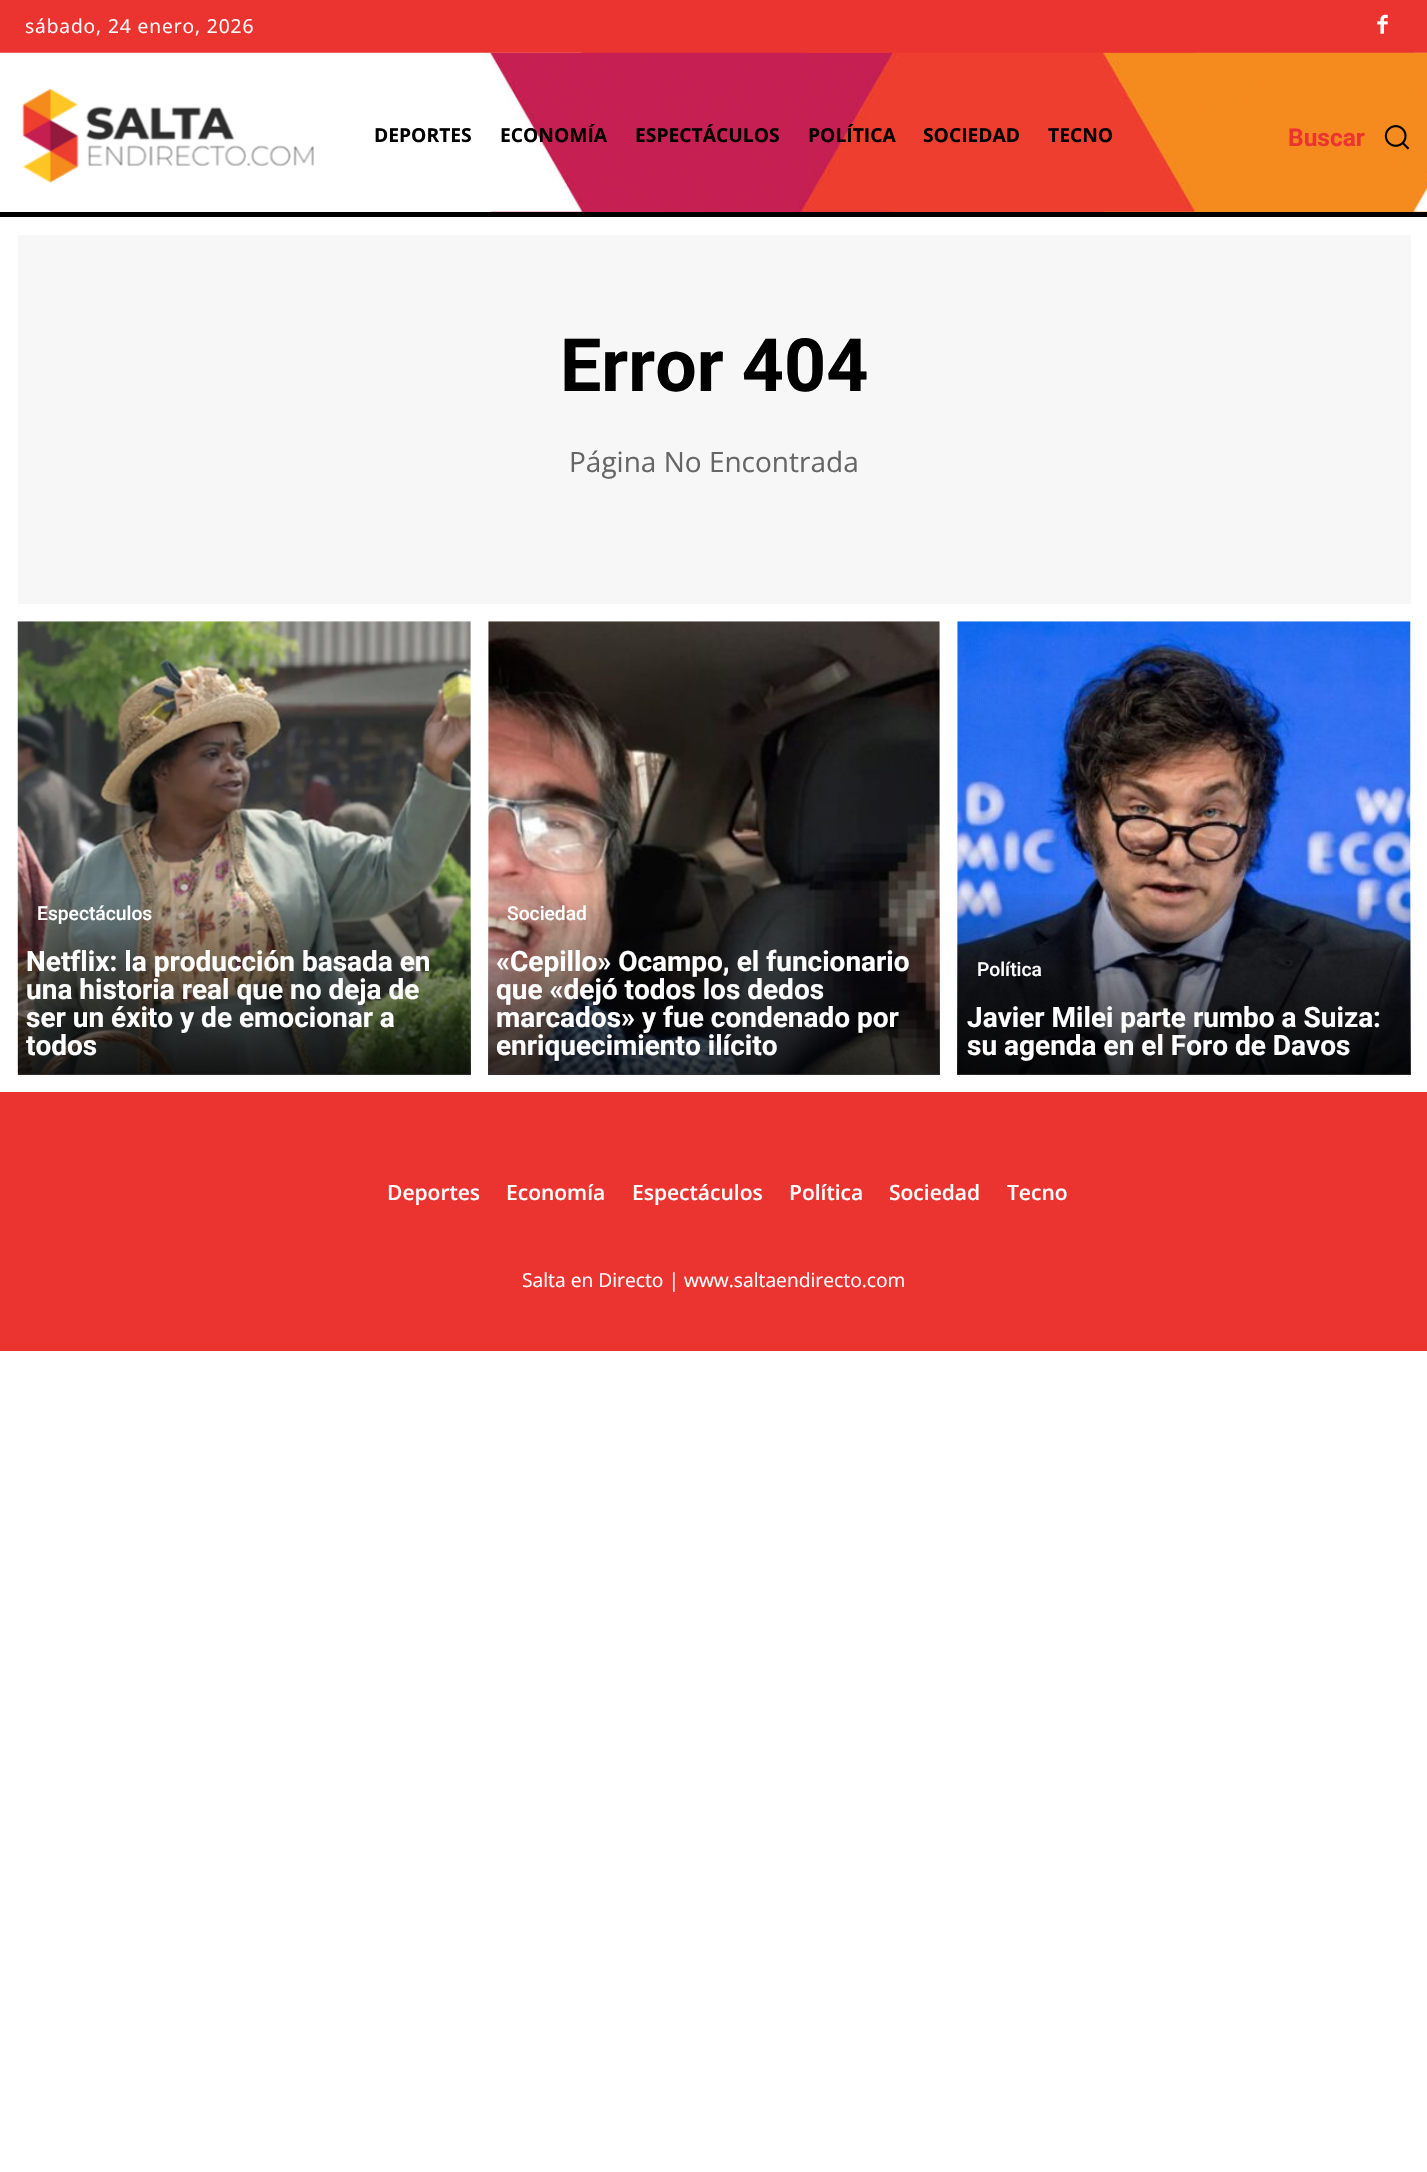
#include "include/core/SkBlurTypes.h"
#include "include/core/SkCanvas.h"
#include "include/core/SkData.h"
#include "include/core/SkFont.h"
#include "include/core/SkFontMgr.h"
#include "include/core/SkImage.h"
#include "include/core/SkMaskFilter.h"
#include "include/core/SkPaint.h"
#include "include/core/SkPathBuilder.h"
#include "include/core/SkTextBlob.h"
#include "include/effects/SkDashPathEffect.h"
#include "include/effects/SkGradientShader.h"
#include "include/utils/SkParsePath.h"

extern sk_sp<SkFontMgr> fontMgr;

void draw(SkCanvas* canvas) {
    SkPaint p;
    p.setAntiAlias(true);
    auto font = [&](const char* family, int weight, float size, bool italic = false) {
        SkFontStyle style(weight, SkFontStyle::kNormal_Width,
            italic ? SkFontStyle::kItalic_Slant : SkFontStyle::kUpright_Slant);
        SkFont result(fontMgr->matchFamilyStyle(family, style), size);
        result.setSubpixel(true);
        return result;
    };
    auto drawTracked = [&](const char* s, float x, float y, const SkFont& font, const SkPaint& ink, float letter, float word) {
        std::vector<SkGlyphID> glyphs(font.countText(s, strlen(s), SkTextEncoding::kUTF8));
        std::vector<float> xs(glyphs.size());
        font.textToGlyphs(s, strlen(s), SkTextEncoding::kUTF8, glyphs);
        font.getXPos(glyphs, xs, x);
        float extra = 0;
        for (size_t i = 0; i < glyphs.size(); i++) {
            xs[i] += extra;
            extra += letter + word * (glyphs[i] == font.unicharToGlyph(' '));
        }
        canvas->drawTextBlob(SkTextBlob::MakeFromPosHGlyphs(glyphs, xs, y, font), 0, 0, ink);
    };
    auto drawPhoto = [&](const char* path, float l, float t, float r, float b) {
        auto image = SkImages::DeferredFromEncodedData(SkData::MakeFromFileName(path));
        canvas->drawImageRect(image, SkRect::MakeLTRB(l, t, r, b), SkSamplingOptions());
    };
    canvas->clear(0xFFFFFFFF);
    p.setColor(0xFFEB3330);
    canvas->drawRect(SkRect::MakeLTRB(0, 0, 1427, 53), p);
    auto font1 = font("Open Sans", 400, 19.25f);
    p.setColor(0xFFFFFFFF);
    drawTracked("sábado, 24 enero, 2026", 25, 33, font1, p, 0.9f, 0);
    drawPhoto("media/1.png", 1377, 14, 1388, 34);
    drawPhoto("media/2.png", 0, 52, 1427, 212);
    p.setColor(0xFF000000);
    canvas->drawRect(SkRect::MakeLTRB(0, 212, 1427, 217), p);
    drawPhoto("media/3.png", 22, 88, 314, 183);
    auto font2 = font("Open Sans", 700, 19.25f);
    {
        const struct { const char* s; float x, y; } items[] = {
            {"DEPORTES", 374, 142},
            {"ECONOMÍA", 500, 142},
            {"ESPECTÁCULOS", 635, 142},
            {"POLÍTICA", 808, 142},
            {"SOCIEDAD", 923, 142},
            {"TECNO", 1048, 142},
        };
        for (auto [s, x, y] : items) {
            canvas->drawString(s, x, y, font2, p);
        }
    }
    auto font3 = font("Roboto", 700, 24.5f);
    p.setColor(0xFFEB3330);
    canvas->drawString("Buscar", 1288, 146, font3, p);
    drawPhoto("media/4.png", 1384, 125, 1410, 150);
    p.setColor(0xFFF7F7F7);
    canvas->drawRect(SkRect::MakeLTRB(18, 235, 1411, 604), p);
    auto font4 = font("Roboto", 700, 73.5f);
    p.setColor(0xFF000000);
    canvas->drawString("Error 404", 560, 391, font4, p);
    auto font5 = font("Open Sans", 400, 28);
    p.setColor(0xFF666666);
    canvas->drawString("Página No Encontrada", 569, 472, font5, p);
    drawPhoto("media/5.png", 17, 621, 471, 1075);
    {
        const SkColor colors[] = {0xCC000000, 0x00000000, 0x00000000};
        const float stops[] = {0, 0.41f, 1};
        const SkPoint ends[] = {{244, 1075}, {244, 621}};
        p.setShader(SkGradientShader::MakeLinear(ends, colors, stops, 3, SkTileMode::kClamp));
        p.setAlpha(255);
    }
    canvas->drawRect(SkRect::MakeLTRB(18, 894, 471, 1075), p);
    auto font6 = font("Roboto", 500, 19.25f);
    p.setShader(nullptr);
    p.setColor(0xFFFFFFFF);
    canvas->drawString("Espectáculos", 37, 920, font6, p);
    auto font7 = font("Roboto", 700, 28);
    {
        const struct { const char* s; float x, y; } items[] = {
            {"Netflix: la producción basada en", 26, 971},
            {"una historia real que no deja de", 26, 999},
            {"ser un éxito y de emocionar a", 26, 1027},
            {"todos", 26, 1055},
        };
        for (auto [s, x, y] : items) {
            canvas->drawString(s, x, y, font7, p);
        }
    }
    drawPhoto("media/6.png", 488, 621, 940, 1075);
    {
        const SkColor colors[] = {0xCC000000, 0x00000000, 0x00000000};
        const float stops[] = {0, 0.41f, 1};
        const SkPoint ends[] = {{714, 1075}, {714, 621}};
        p.setShader(SkGradientShader::MakeLinear(ends, colors, stops, 3, SkTileMode::kClamp));
        p.setAlpha(255);
    }
    canvas->drawRect(SkRect::MakeLTRB(488, 894, 940, 1075), p);
    p.setShader(nullptr);
    p.setColor(0xFFFFFFFF);
    canvas->drawString("Sociedad", 507, 920, font6, p);
    {
        const struct { const char* s; float x, y; } items[] = {
            {"«Cepillo» Ocampo, el funcionario", 496, 971},
            {"que «dejó todos los dedos", 496, 999},
            {"marcados» y fue condenado por", 496, 1027},
            {"enriquecimiento ilícito", 496, 1055},
        };
        for (auto [s, x, y] : items) {
            canvas->drawString(s, x, y, font7, p);
        }
    }
    drawPhoto("media/7.png", 957, 621, 1411, 1075);
    {
        const SkColor colors[] = {0xCC000000, 0x00000000, 0x00000000};
        const float stops[] = {0, 0.41f, 1};
        const SkPoint ends[] = {{1184, 1075}, {1184, 621}};
        p.setShader(SkGradientShader::MakeLinear(ends, colors, stops, 3, SkTileMode::kClamp));
        p.setAlpha(255);
    }
    canvas->drawRect(SkRect::MakeLTRB(957, 894, 1411, 1075), p);
    p.setShader(nullptr);
    p.setColor(0xFFFFFFFF);
    canvas->drawString("Política", 977, 976, font6, p);
    canvas->drawString("Javier Milei parte rumbo a Suiza:", 967, 1027, font7, p);
    canvas->drawString("su agenda en el Foro de Davos", 967, 1055, font7, p);
    p.setColor(0xFFEB3330);
    canvas->drawRect(SkRect::MakeLTRB(0, 1092, 1427, 1351), p);
    auto font8 = font("Open Sans", 600, 21);
    p.setColor(0xFFFFFFFF);
    {
        const struct { const char* s; float x, y; } items[] = {
            {"Deportes", 387, 1200},
            {"Economía", 506, 1200},
            {"Espectáculos", 632, 1200},
            {"Política", 789, 1200},
            {"Sociedad", 889, 1200},
            {"Tecno", 1007, 1200},
        };
        for (auto [s, x, y] : items) {
            canvas->drawString(s, x, y, font8, p);
        }
    }
    canvas->drawString("Salta en Directo | www.saltaendirecto.com", 522, 1287, font1, p);
}
